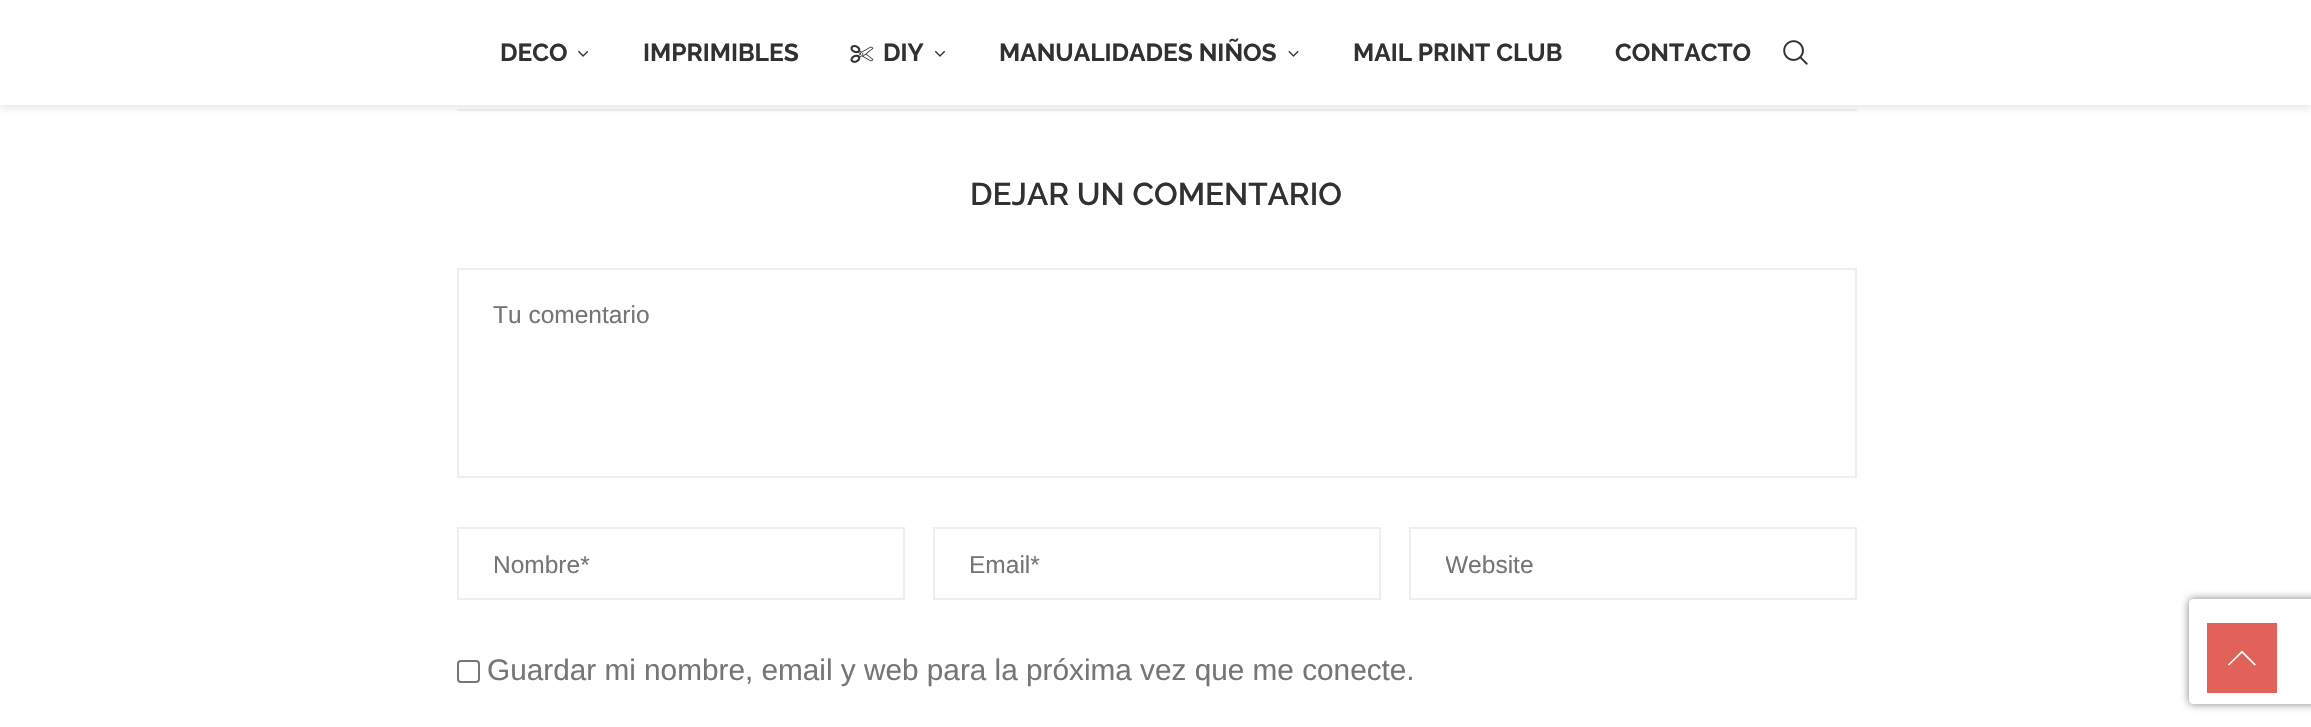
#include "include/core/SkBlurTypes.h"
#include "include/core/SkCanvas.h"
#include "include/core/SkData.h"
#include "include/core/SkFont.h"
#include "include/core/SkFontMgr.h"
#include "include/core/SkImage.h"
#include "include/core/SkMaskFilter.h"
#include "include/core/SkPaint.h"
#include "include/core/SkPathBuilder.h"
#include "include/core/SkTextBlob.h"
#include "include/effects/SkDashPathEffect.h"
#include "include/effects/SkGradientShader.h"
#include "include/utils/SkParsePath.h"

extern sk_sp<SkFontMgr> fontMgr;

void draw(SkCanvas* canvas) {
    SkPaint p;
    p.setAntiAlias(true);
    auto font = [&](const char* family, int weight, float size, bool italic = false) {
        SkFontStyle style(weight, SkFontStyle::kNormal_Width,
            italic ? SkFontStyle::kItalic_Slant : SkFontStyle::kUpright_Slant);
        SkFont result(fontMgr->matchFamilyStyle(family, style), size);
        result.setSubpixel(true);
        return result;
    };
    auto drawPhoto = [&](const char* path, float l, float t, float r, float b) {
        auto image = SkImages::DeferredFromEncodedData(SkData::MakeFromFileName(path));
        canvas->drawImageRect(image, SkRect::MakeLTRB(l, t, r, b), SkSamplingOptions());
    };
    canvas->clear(0xFFFFFFFF);
    p.setColor(0xFFEEEEEE);
    canvas->drawRect(SkRect::MakeLTRB(457, 109, 1857, 111), p);
    p.setColor(0x75BEBEBE);
    p.setMaskFilter(SkMaskFilter::MakeBlur(kNormal_SkBlurStyle, 4.5f));
    canvas->drawRect(SkRect::MakeLTRB(0, 2, 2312, 107), p);
    p.setMaskFilter(nullptr);
    p.setColor(0xFFFFFFFF);
    canvas->drawRect(SkRect::MakeLTRB(0, 0, 2311, 105), p);
    auto font1 = font("Raleway", 700, 24.5f);
    p.setColor(0xFF313131);
    canvas->drawString("DECO", 500, 61, font1, p);
    drawPhoto("media/1.png", 578, 50, 589, 57);
    canvas->drawString("IMPRIMIBLES", 643, 61, font1, p);
    drawPhoto("media/2.png", 850, 45, 874, 63);
    canvas->drawString("DIY", 883, 61, font1, p);
    drawPhoto("media/3.png", 935, 50, 945, 57);
    canvas->drawString("MANUALIDADES NIÑOS", 999, 61, font1, p);
    drawPhoto("media/4.png", 1288, 50, 1299, 57);
    canvas->drawString("MAIL PRINT CLUB", 1353, 61, font1, p);
    canvas->drawString("CONTACTO", 1615, 61, font1, p);
    drawPhoto("media/5.png", 1783, 40, 1808, 65);
    auto font2 = font("Raleway", 600, 31.5f);
    canvas->drawString("DEJAR UN COMENTARIO", 970, 205, font2, p);
    p.setStyle(SkPaint::kStroke_Style);
    p.setStrokeWidth(2);
    p.setColor(0xFFEEEEEE);
    canvas->drawRect(SkRect::MakeLTRB(458, 269, 1856, 477), p);
    auto font3 = font("Liberation Sans", 400, 24.5f);
    p.setStyle(SkPaint::kFill_Style);
    p.setColor(0xFF757575);
    canvas->drawString("Tu comentario", 493, 323, font3, p);
    p.setStyle(SkPaint::kStroke_Style);
    p.setColor(0xFFEEEEEE);
    canvas->drawRect(SkRect::MakeLTRB(458, 528, 904, 599), p);
    p.setStyle(SkPaint::kFill_Style);
    p.setColor(0xFF757575);
    canvas->drawString("Nombre*", 493, 573, font3, p);
    p.setStyle(SkPaint::kStroke_Style);
    p.setColor(0xFFEEEEEE);
    canvas->drawRect(SkRect::MakeLTRB(934, 528, 1380, 599), p);
    p.setStyle(SkPaint::kFill_Style);
    p.setColor(0xFF757575);
    canvas->drawString("Email*", 969, 573, font3, p);
    p.setStyle(SkPaint::kStroke_Style);
    p.setColor(0xFFEEEEEE);
    canvas->drawRect(SkRect::MakeLTRB(1410, 528, 1856, 599), p);
    canvas->save();
    canvas->clipRect(SkRect::MakeLTRB(1446, 550, 1820, 578));
    p.setStyle(SkPaint::kFill_Style);
    p.setColor(0xFF757575);
    canvas->drawString("Website", 1445, 573, font3, p);
    canvas->restore();
    p.setStyle(SkPaint::kStroke_Style);
    p.setColor(0xFF767676);
    canvas->drawRoundRect(SkRect::MakeLTRB(458, 661, 479, 682), 3, 3, p);
    auto font4 = font("Liberation Sans", 400, 29.75f);
    p.setStyle(SkPaint::kFill_Style);
    p.setColor(0xFF757575);
    canvas->drawString("Guardar mi nombre, email y web para la próxima vez que me conecte.", 487, 680, font4, p);
    canvas->save();
    canvas->clipPath(SkPathBuilder(SkPathFillType::kEvenOdd).moveTo(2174, 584).lineTo(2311, 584).lineTo(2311, 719).lineTo(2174, 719).close().moveTo(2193, 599).lineTo(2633, 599).cubicTo(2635, 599, 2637, 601, 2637, 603).lineTo(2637, 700).cubicTo(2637, 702, 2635, 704, 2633, 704).lineTo(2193, 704).cubicTo(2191, 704, 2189, 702, 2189, 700).lineTo(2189, 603).cubicTo(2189, 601, 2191, 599, 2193, 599).close().detach(), true);
    p.setColor(0xFF808080);
    p.setMaskFilter(SkMaskFilter::MakeBlur(kNormal_SkBlurStyle, 4.5f));
    canvas->drawRoundRect(SkRect::MakeLTRB(2189, 599, 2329, 704), 4, 4, p);
    p.setMaskFilter(nullptr);
    canvas->restore();
    p.setColor(0xFFE06259);
    canvas->drawRect(SkRect::MakeLTRB(2207, 623, 2277, 693), p);
    p.setColor(0xFFFFFFFF);
    canvas->drawPath(SkPathBuilder().moveTo(2242, 650.5f).lineTo(2228, 664.5f).lineTo(2229, 665.5f).lineTo(2242, 653).lineTo(2254.5f, 665.5f).lineTo(2256, 664.5f).close().detach(), p);
}
